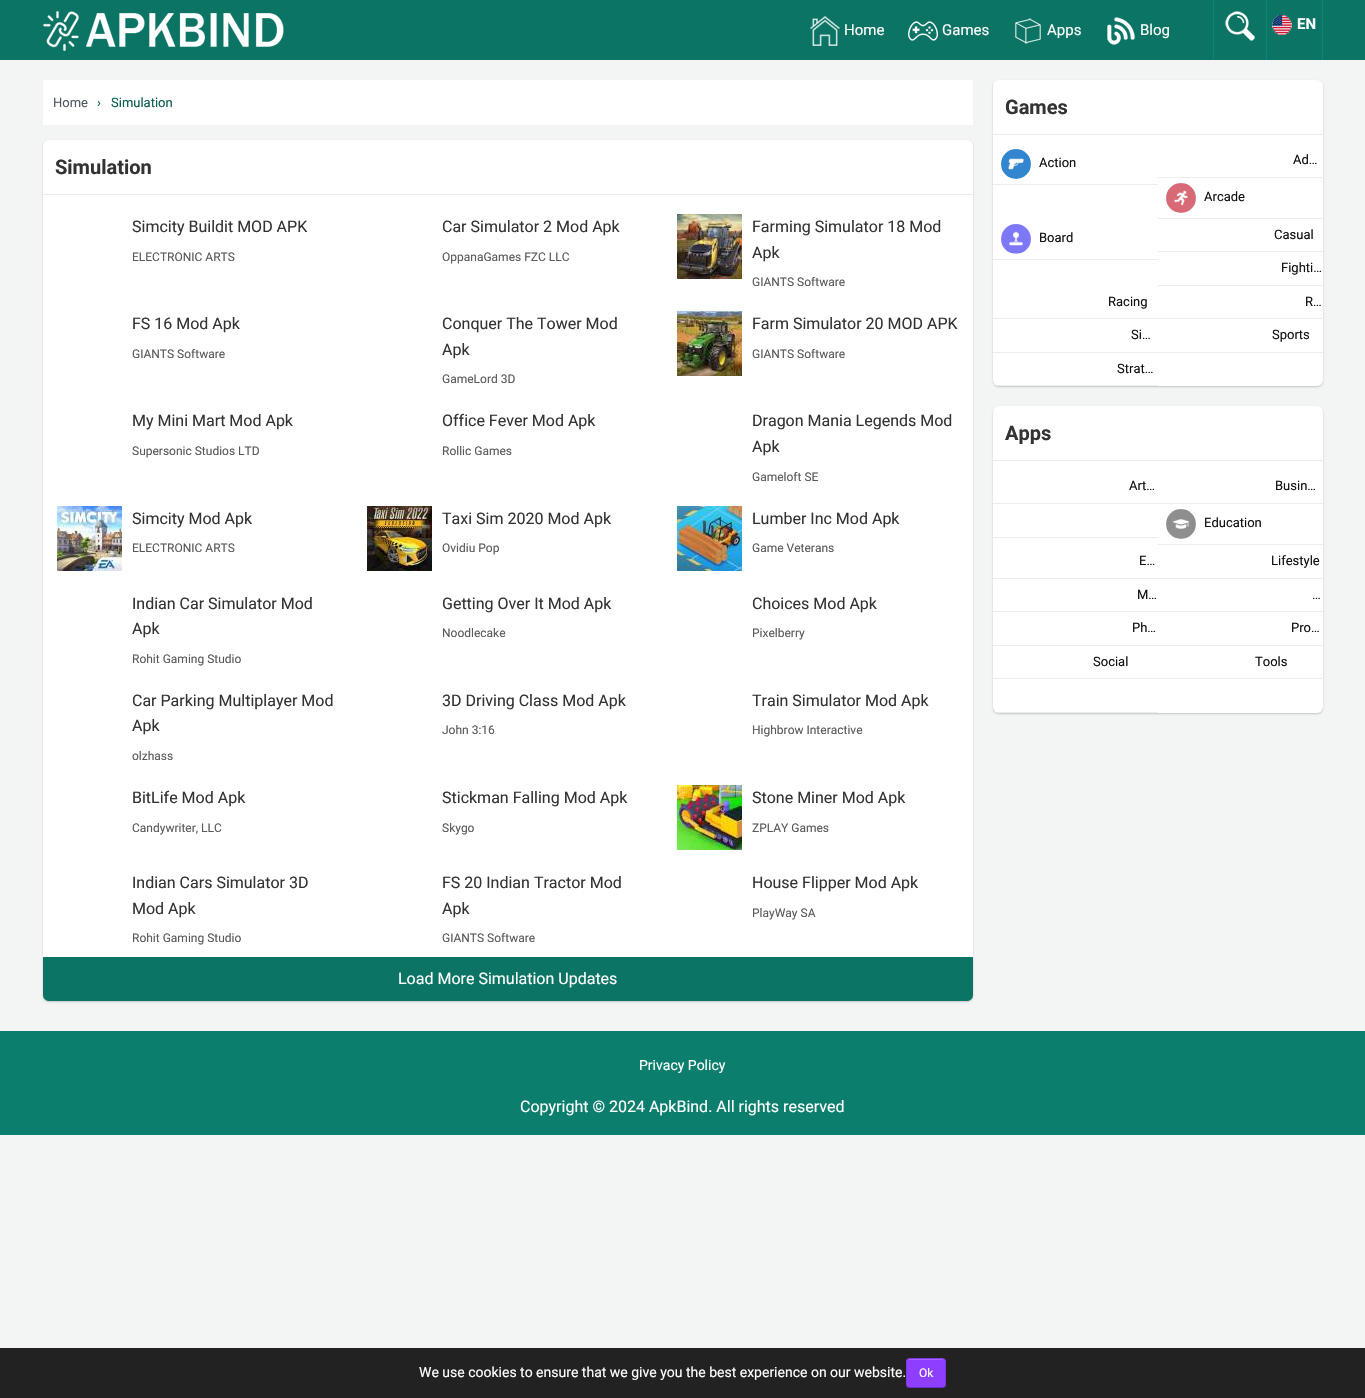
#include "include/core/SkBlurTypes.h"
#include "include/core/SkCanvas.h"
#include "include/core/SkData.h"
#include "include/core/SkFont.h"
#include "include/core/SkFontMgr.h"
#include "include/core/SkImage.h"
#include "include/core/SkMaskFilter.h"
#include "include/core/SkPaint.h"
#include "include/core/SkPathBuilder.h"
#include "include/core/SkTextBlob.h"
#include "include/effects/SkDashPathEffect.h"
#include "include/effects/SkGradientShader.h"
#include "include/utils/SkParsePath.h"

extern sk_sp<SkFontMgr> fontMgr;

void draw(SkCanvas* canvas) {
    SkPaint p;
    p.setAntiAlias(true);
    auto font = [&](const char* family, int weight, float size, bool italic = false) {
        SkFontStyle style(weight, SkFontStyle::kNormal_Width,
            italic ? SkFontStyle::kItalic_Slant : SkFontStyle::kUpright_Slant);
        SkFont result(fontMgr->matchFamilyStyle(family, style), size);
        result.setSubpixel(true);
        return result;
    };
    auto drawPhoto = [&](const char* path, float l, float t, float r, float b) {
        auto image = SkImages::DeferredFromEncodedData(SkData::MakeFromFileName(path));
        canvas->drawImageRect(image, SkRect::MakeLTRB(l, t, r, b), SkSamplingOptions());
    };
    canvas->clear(0xFFF3F5F5);
    p.setColor(0xFF0B7465);
    canvas->drawRect(SkRect::MakeLTRB(0, 0, 1365, 60), p);
    drawPhoto("media/1.png", 43, 11, 284, 51);
    drawPhoto("media/2.png", 810, 16, 840, 46);
    auto font1 = font("Roboto", 400, 15);
    p.setColor(0xFFFFFFFF);
    canvas->drawString("Home", 844, 35, font1, p);
    drawPhoto("media/3.png", 908, 21, 938, 41);
    canvas->drawString("Games", 942, 35, font1, p);
    drawPhoto("media/4.png", 1015, 18, 1041, 44);
    canvas->drawString("Apps", 1047, 35, font1, p);
    drawPhoto("media/5.png", 1107, 17, 1135, 45);
    canvas->drawString("Blog", 1140, 35, font1, p);
    p.setColor(0xFF0C8775);
    canvas->drawRect(SkRect::MakeLTRB(1213, 0, 1214, 59), p);
    drawPhoto("media/6.png", 1225, 11, 1255, 41);
    canvas->drawRect(SkRect::MakeLTRB(1322, 0, 1323, 60), p);
    canvas->drawRect(SkRect::MakeLTRB(1266, 0, 1267, 60), p);
    drawPhoto("media/7.png", 1272, 15, 1292, 35);
    auto font2 = font("Roboto", 700, 15);
    p.setColor(0xFFFFFFFF);
    canvas->drawString("EN", 1297, 29, font2, p);
    canvas->drawRect(SkRect::MakeLTRB(43, 80, 973, 125), p);
    auto font3 = font("Roboto", 400, 13);
    p.setColor(0xFF525860);
    canvas->drawString("Home", 53, 107, font3, p);
    p.setColor(0xFF095D50);
    canvas->drawString("›", 97, 107, font3, p);
    canvas->drawString("Simulation", 111, 107, font3, p);
    p.setColor(0x33000000);
    p.setMaskFilter(SkMaskFilter::MakeBlur(kNormal_SkBlurStyle, 1));
    canvas->drawRoundRect(SkRect::MakeLTRB(43, 141, 973, 1002), 6, 6, p);
    p.setMaskFilter(nullptr);
    p.setColor(0xFFFFFFFF);
    canvas->drawRoundRect(SkRect::MakeLTRB(43, 140, 973, 1001), 6, 6, p);
    p.setColor(0xFFEBEBEB);
    canvas->drawRect(SkRect::MakeLTRB(43, 194, 973, 195), p);
    auto font4 = font("Roboto", 700, 20);
    p.setColor(0xFF333333);
    canvas->drawString("Simulation", 55, 174, font4, p);
    auto font5 = font("Roboto", 400, 16);
    canvas->drawString("Simcity Buildit MOD APK", 132, 232, font5, p);
    auto font6 = font("Roboto", 400, 12);
    p.setColor(0xFF595959);
    canvas->drawString("ELECTRONIC ARTS", 132, 261, font6, p);
    p.setColor(0xFF333333);
    canvas->drawString("Car Simulator 2 Mod Apk", 442, 232, font5, p);
    p.setColor(0xFF595959);
    canvas->drawString("OppanaGames FZC LLC", 442, 261, font6, p);
    drawPhoto("media/8.png", 677, 214, 742, 279);
    p.setColor(0xFF333333);
    canvas->drawString("Farming Simulator 18 Mod", 752, 232, font5, p);
    canvas->drawString("Apk", 752, 258, font5, p);
    p.setColor(0xFF595959);
    canvas->drawString("GIANTS Software", 752, 286, font6, p);
    p.setColor(0xFF333333);
    canvas->drawString("FS 16 Mod Apk", 132, 329, font5, p);
    p.setColor(0xFF595959);
    canvas->drawString("GIANTS Software", 132, 358, font6, p);
    p.setColor(0xFF333333);
    canvas->drawString("Conquer The Tower Mod", 442, 329, font5, p);
    canvas->drawString("Apk", 442, 355, font5, p);
    p.setColor(0xFF595959);
    canvas->drawString("GameLord 3D", 442, 383, font6, p);
    drawPhoto("media/9.png", 677, 311, 742, 376);
    p.setColor(0xFF333333);
    canvas->drawString("Farm Simulator 20 MOD APK", 752, 329, font5, p);
    p.setColor(0xFF595959);
    canvas->drawString("GIANTS Software", 752, 358, font6, p);
    p.setColor(0xFF333333);
    canvas->drawString("My Mini Mart Mod Apk", 132, 426, font5, p);
    p.setColor(0xFF595959);
    canvas->drawString("Supersonic Studios LTD", 132, 455, font6, p);
    p.setColor(0xFF333333);
    canvas->drawString("Office Fever Mod Apk", 442, 426, font5, p);
    p.setColor(0xFF595959);
    canvas->drawString("Rollic Games", 442, 455, font6, p);
    p.setColor(0xFF333333);
    canvas->drawString("Dragon Mania Legends Mod", 752, 426, font5, p);
    canvas->drawString("Apk", 752, 452, font5, p);
    p.setColor(0xFF595959);
    canvas->drawString("Gameloft SE", 752, 481, font6, p);
    drawPhoto("media/10.png", 57, 506, 122, 571);
    p.setColor(0xFF333333);
    canvas->drawString("Simcity Mod Apk", 132, 524, font5, p);
    p.setColor(0xFF595959);
    canvas->drawString("ELECTRONIC ARTS", 132, 552, font6, p);
    drawPhoto("media/11.png", 367, 506, 432, 571);
    p.setColor(0xFF333333);
    canvas->drawString("Taxi Sim 2020 Mod Apk", 442, 524, font5, p);
    p.setColor(0xFF595959);
    canvas->drawString("Ovidiu Pop", 442, 552, font6, p);
    drawPhoto("media/12.png", 677, 506, 742, 571);
    p.setColor(0xFF333333);
    canvas->drawString("Lumber Inc Mod Apk", 752, 524, font5, p);
    p.setColor(0xFF595959);
    canvas->drawString("Game Veterans", 752, 552, font6, p);
    p.setColor(0xFF333333);
    canvas->drawString("Indian Car Simulator Mod", 132, 609, font5, p);
    canvas->drawString("Apk", 132, 634, font5, p);
    p.setColor(0xFF595959);
    canvas->drawString("Rohit Gaming Studio", 132, 663, font6, p);
    p.setColor(0xFF333333);
    canvas->drawString("Getting Over It Mod Apk", 442, 609, font5, p);
    p.setColor(0xFF595959);
    canvas->drawString("Noodlecake", 442, 637, font6, p);
    p.setColor(0xFF333333);
    canvas->drawString("Choices Mod Apk", 752, 609, font5, p);
    p.setColor(0xFF595959);
    canvas->drawString("Pixelberry", 752, 637, font6, p);
    p.setColor(0xFF333333);
    canvas->drawString("Car Parking Multiplayer Mod", 132, 706, font5, p);
    canvas->drawString("Apk", 132, 731, font5, p);
    p.setColor(0xFF595959);
    canvas->drawString("olzhass", 132, 760, font6, p);
    p.setColor(0xFF333333);
    canvas->drawString("3D Driving Class Mod Apk", 442, 706, font5, p);
    p.setColor(0xFF595959);
    canvas->drawString("John 3:16", 442, 734, font6, p);
    p.setColor(0xFF333333);
    canvas->drawString("Train Simulator Mod Apk", 752, 706, font5, p);
    p.setColor(0xFF595959);
    canvas->drawString("Highbrow Interactive", 752, 734, font6, p);
    p.setColor(0xFF333333);
    canvas->drawString("BitLife Mod Apk", 132, 803, font5, p);
    p.setColor(0xFF595959);
    canvas->drawString("Candywriter, LLC", 132, 832, font6, p);
    p.setColor(0xFF333333);
    canvas->drawString("Stickman Falling Mod Apk", 442, 803, font5, p);
    p.setColor(0xFF595959);
    canvas->drawString("Skygo", 442, 832, font6, p);
    drawPhoto("media/13.png", 677, 785, 742, 850);
    p.setColor(0xFF333333);
    canvas->drawString("Stone Miner Mod Apk", 752, 803, font5, p);
    p.setColor(0xFF595959);
    canvas->drawString("ZPLAY Games", 752, 832, font6, p);
    p.setColor(0xFF333333);
    canvas->drawString("Indian Cars Simulator 3D", 132, 888, font5, p);
    canvas->drawString("Mod Apk", 132, 914, font5, p);
    p.setColor(0xFF595959);
    canvas->drawString("Rohit Gaming Studio", 132, 942, font6, p);
    p.setColor(0xFF333333);
    canvas->drawString("FS 20 Indian Tractor Mod", 442, 888, font5, p);
    canvas->drawString("Apk", 442, 914, font5, p);
    p.setColor(0xFF595959);
    canvas->drawString("GIANTS Software", 442, 942, font6, p);
    p.setColor(0xFF333333);
    canvas->drawString("House Flipper Mod Apk", 752, 888, font5, p);
    p.setColor(0xFF595959);
    canvas->drawString("PlayWay SA", 752, 917, font6, p);
    p.setColor(0xFF0B7465);
    canvas->drawPath(SkPathBuilder().moveTo(43, 957).lineTo(973, 957).lineTo(973, 995).cubicTo(973, 998.5f, 970.5f, 1001, 967, 1001).lineTo(49, 1001).cubicTo(45.5f, 1001, 43, 998.5f, 43, 995).close().detach(), p);
    p.setColor(0xFFFFFFFF);
    canvas->drawString("Load More Simulation Updates", 398, 984, font5, p);
    p.setColor(0x33000000);
    p.setMaskFilter(SkMaskFilter::MakeBlur(kNormal_SkBlurStyle, 1));
    canvas->drawRoundRect(SkRect::MakeLTRB(993, 81, 1323, 387), 6, 6, p);
    p.setMaskFilter(nullptr);
    p.setColor(0xFFFFFFFF);
    canvas->drawRoundRect(SkRect::MakeLTRB(993, 80, 1323, 386), 6, 6, p);
    p.setColor(0xFFEBEBEB);
    canvas->drawRect(SkRect::MakeLTRB(993, 134, 1323, 135), p);
    p.setColor(0xFF333333);
    canvas->drawString("Games", 1005, 114, font4, p);
    p.setColor(0xFFEDEDED);
    canvas->drawRect(SkRect::MakeLTRB(993, 184, 1158, 185), p);
    drawPhoto("media/14.png", 1001, 149, 1031, 179);
    p.setColor(0xFF101010);
    canvas->drawString("Action", 1039, 167, font3, p);
    p.setColor(0xFFEDEDED);
    canvas->drawRect(SkRect::MakeLTRB(1158, 177, 1323, 178), p);
    p.setColor(0xFF101010);
    canvas->drawString("Ad…", 1293, 164, font3, p);
    p.setColor(0xFFEDEDED);
    canvas->drawRect(SkRect::MakeLTRB(1158, 218, 1323, 219), p);
    drawPhoto("media/15.png", 1166, 183, 1196, 213);
    p.setColor(0xFF101010);
    canvas->drawString("Arcade", 1204, 201, font3, p);
    p.setColor(0xFFEDEDED);
    canvas->drawRect(SkRect::MakeLTRB(993, 259, 1158, 260), p);
    drawPhoto("media/16.png", 1001, 224, 1031, 254);
    p.setColor(0xFF101010);
    canvas->drawString("Board", 1039, 242, font3, p);
    p.setColor(0xFFEDEDED);
    canvas->drawRect(SkRect::MakeLTRB(1158, 251, 1323, 252), p);
    p.setColor(0xFF101010);
    canvas->drawString("Casual", 1274, 239, font3, p);
    p.setColor(0xFFEDEDED);
    canvas->drawRect(SkRect::MakeLTRB(1158, 285, 1323, 286), p);
    p.setColor(0xFF101010);
    canvas->drawString("Fighti…", 1281, 272, font3, p);
    p.setColor(0xFFEDEDED);
    canvas->drawRect(SkRect::MakeLTRB(993, 318, 1323, 319), p);
    p.setColor(0xFF101010);
    canvas->drawString("Racing", 1108, 306, font3, p);
    canvas->drawString("R…", 1305, 306, font3, p);
    p.setColor(0xFFEDEDED);
    canvas->drawRect(SkRect::MakeLTRB(993, 352, 1323, 353), p);
    p.setColor(0xFF101010);
    canvas->drawString("Si…", 1131, 339, font3, p);
    canvas->drawString("Sports", 1272, 339, font3, p);
    canvas->save();
    canvas->clipPath(SkPathBuilder().moveTo(999, 80).lineTo(1317, 80).cubicTo(1320.5f, 80, 1323, 82.5f, 1323, 86).lineTo(1323, 380).cubicTo(1323, 383.5f, 1320.5f, 386, 1317, 386).lineTo(999, 386).cubicTo(995.5f, 386, 993, 383.5f, 993, 380).lineTo(993, 86).cubicTo(993, 82.5f, 995.5f, 80, 999, 80).close().detach(), true);
    p.setColor(0xFFEDEDED);
    canvas->drawRect(SkRect::MakeLTRB(993, 385, 1158, 386), p);
    canvas->restore();
    p.setColor(0xFF101010);
    canvas->drawString("Strat…", 1117, 373, font3, p);
    p.setColor(0x33000000);
    p.setMaskFilter(SkMaskFilter::MakeBlur(kNormal_SkBlurStyle, 1));
    canvas->drawRoundRect(SkRect::MakeLTRB(993, 407, 1323, 714), 6, 6, p);
    p.setMaskFilter(nullptr);
    p.setColor(0xFFFFFFFF);
    canvas->drawRoundRect(SkRect::MakeLTRB(993, 406, 1323, 713), 6, 6, p);
    p.setColor(0xFFEBEBEB);
    canvas->drawRect(SkRect::MakeLTRB(993, 460, 1323, 461), p);
    p.setColor(0xFF333333);
    canvas->drawString("Apps", 1005, 440, font4, p);
    p.setColor(0xFFEDEDED);
    canvas->drawRect(SkRect::MakeLTRB(993, 503, 1323, 504), p);
    p.setColor(0xFF101010);
    canvas->drawString("Art…", 1129, 490, font3, p);
    canvas->drawString("Busin…", 1275, 490, font3, p);
    p.setColor(0xFFEDEDED);
    canvas->drawRect(SkRect::MakeLTRB(1158, 544, 1323, 545), p);
    drawPhoto("media/17.png", 1166, 509, 1196, 539);
    p.setColor(0xFF101010);
    canvas->drawString("Education", 1204, 527, font3, p);
    p.setColor(0xFFEDEDED);
    canvas->drawRect(SkRect::MakeLTRB(993, 537, 1158, 538), p);
    canvas->drawRect(SkRect::MakeLTRB(993, 578, 1323, 579), p);
    p.setColor(0xFF101010);
    canvas->drawString("E…", 1139, 565, font3, p);
    canvas->drawString("Lifestyle", 1271, 565, font3, p);
    p.setColor(0xFFEDEDED);
    canvas->drawRect(SkRect::MakeLTRB(993, 611, 1323, 612), p);
    p.setColor(0xFF101010);
    canvas->drawString("M…", 1137, 599, font3, p);
    canvas->drawString("…", 1312, 599, font3, p);
    p.setColor(0xFFEDEDED);
    canvas->drawRect(SkRect::MakeLTRB(993, 645, 1323, 646), p);
    p.setColor(0xFF101010);
    canvas->drawString("Ph…", 1132, 632, font3, p);
    canvas->drawString("Pro…", 1291, 632, font3, p);
    p.setColor(0xFFEDEDED);
    canvas->drawRect(SkRect::MakeLTRB(993, 678, 1323, 679), p);
    p.setColor(0xFF101010);
    canvas->drawString("Social", 1093, 666, font3, p);
    canvas->drawString("Tools", 1255, 666, font3, p);
    canvas->save();
    canvas->clipPath(SkPathBuilder().moveTo(999, 406).lineTo(1317, 406).cubicTo(1320.5f, 406, 1323, 408.5f, 1323, 412).lineTo(1323, 707).cubicTo(1323, 710.5f, 1320.5f, 713, 1317, 713).lineTo(999, 713).cubicTo(995.5f, 713, 993, 710.5f, 993, 707).lineTo(993, 412).cubicTo(993, 408.5f, 995.5f, 406, 999, 406).close().detach(), true);
    p.setColor(0xFFEDEDED);
    canvas->drawRect(SkRect::MakeLTRB(993, 712, 1158, 713), p);
    canvas->restore();
    p.setColor(0xFF0B7E6E);
    canvas->drawRect(SkRect::MakeLTRB(0, 1031, 1365, 1135), p);
    auto font7 = font("Roboto", 400, 14);
    p.setColor(0xFFFFFFFF);
    canvas->drawString("Privacy Policy", 639, 1070, font7, p);
    canvas->drawString("Copyright © 2024 ApkBind. All rights reserved", 520, 1112, font5, p);
    p.setColor(0xFF232222);
    canvas->drawRect(SkRect::MakeLTRB(0, 1348, 1365, 1398), p);
    p.setColor(0xFFFFFFFF);
    canvas->drawString("We use cookies to ensure that we give you the best experience on our website.", 419, 1377, font7, p);
    p.setColor(0xFF8E3EFF);
    canvas->drawRoundRect(SkRect::MakeLTRB(906, 1358, 946, 1388), 4, 4, p);
    p.setColor(0xFFA565FF);
    canvas->drawPath(SkPathBuilder().moveTo(910, 1360).lineTo(942, 1360).cubicTo(944, 1360, 945, 1361, 945, 1363).cubicTo(945, 1358, 941, 1359, 936.5f, 1359).lineTo(915.5f, 1359).cubicTo(911, 1359, 907, 1358, 907, 1363).cubicTo(907, 1361, 908, 1360, 910, 1360).close().detach(), p);
    p.setStyle(SkPaint::kStroke_Style);
    p.setStrokeWidth(1);
    p.setColor(0x40000000);
    canvas->drawPath(SkPathBuilder().moveTo(944.5f, 1386.5f).cubicTo(944, 1387, 943, 1387.5f, 942, 1387.5f).lineTo(910, 1387.5f).cubicTo(909, 1387.5f, 908, 1387, 907.5f, 1386.5f).detach(), p);
    p.setColor(0x1A000000);
    canvas->drawPath(SkPathBuilder().moveTo(907.5f, 1386.5f).cubicTo(907, 1386, 906.5f, 1385, 906.5f, 1384).lineTo(906.5f, 1362).cubicTo(906.5f, 1361, 907, 1360, 907.5f, 1359.5f).cubicTo(908, 1359, 909, 1358.5f, 910, 1358.5f).lineTo(942, 1358.5f).cubicTo(943, 1358.5f, 944, 1359, 944.5f, 1359.5f).cubicTo(945, 1360, 945.5f, 1361, 945.5f, 1362).lineTo(945.5f, 1384).cubicTo(945.5f, 1385, 945, 1386, 944.5f, 1386.5f).detach(), p);
    p.setStyle(SkPaint::kFill_Style);
    p.setColor(0xFFFFFFFF);
    canvas->drawString("Ok", 919, 1377, font6, p);
}
